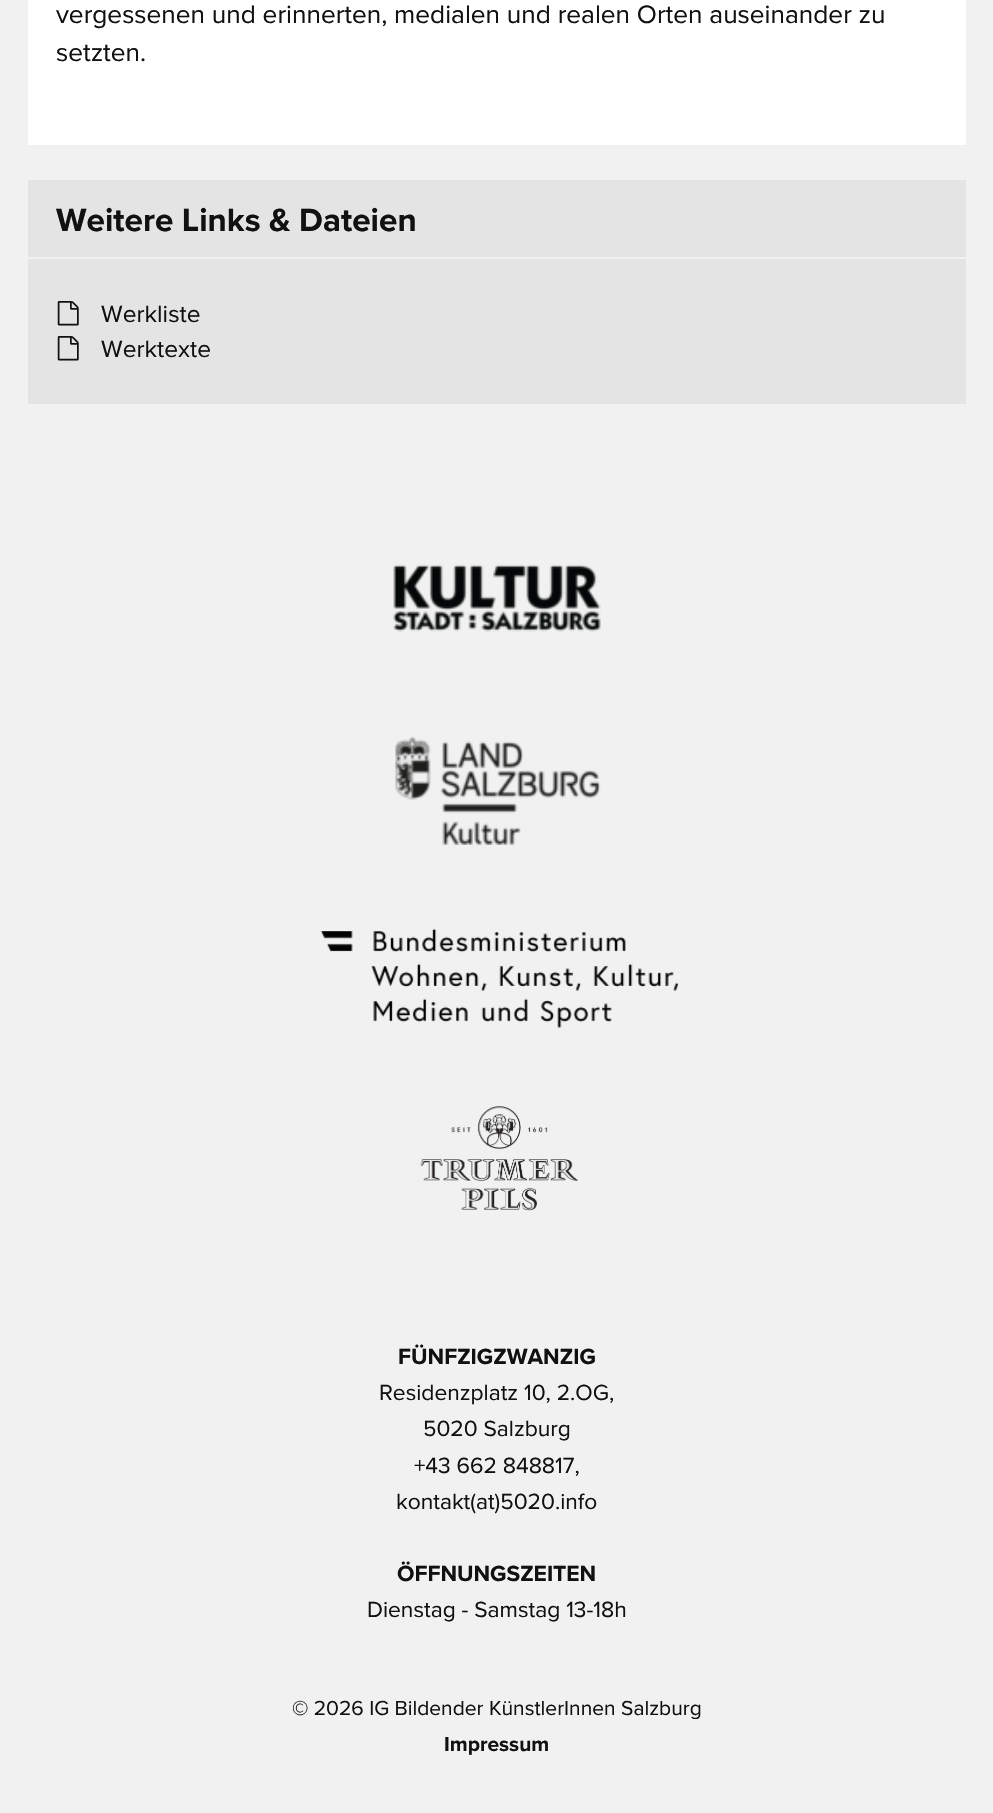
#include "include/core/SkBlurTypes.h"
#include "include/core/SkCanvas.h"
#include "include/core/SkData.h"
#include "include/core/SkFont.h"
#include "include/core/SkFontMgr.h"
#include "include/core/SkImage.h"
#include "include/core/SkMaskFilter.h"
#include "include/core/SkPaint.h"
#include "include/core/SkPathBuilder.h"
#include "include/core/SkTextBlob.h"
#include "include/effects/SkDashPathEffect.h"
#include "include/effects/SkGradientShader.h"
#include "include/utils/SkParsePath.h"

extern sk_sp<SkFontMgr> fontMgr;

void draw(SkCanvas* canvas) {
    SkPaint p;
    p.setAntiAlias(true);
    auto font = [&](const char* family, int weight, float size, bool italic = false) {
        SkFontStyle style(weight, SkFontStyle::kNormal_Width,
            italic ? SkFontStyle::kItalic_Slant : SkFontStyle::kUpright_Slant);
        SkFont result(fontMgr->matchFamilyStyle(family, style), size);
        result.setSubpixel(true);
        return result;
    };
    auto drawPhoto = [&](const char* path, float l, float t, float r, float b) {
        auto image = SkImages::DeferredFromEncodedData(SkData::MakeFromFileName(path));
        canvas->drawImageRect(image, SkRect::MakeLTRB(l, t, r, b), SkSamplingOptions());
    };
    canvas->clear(0xFFF1F1F1);
    p.setColor(0xFFFFFFFF);
    canvas->drawRect(SkRect::MakeLTRB(28, 0, 966, 145), p);
    auto font1 = font("Proxima Nova", 400, 26.25f);
    p.setColor(0xFF111111);
    canvas->drawString("vergessenen und erinnerten, medialen und realen Orten auseinander zu", 56, 23, font1, p);
    canvas->drawString("setzten.", 56, 61, font1, p);
    p.setColor(0xFFE4E4E4);
    canvas->drawRect(SkRect::MakeLTRB(28, 180, 966, 257), p);
    auto font2 = font("Proxima Nova", 700, 33.25f);
    p.setColor(0xFF111111);
    canvas->drawString("Weitere Links & Dateien", 56, 231, font2, p);
    p.setColor(0xFFE4E4E4);
    canvas->drawRect(SkRect::MakeLTRB(28, 259, 966, 404), p);
    drawPhoto("media/1.png", 57, 301, 79, 326);
    auto font3 = font("Proxima Nova", 400, 24.5f);
    p.setColor(0xFF111111);
    canvas->drawString("Werkliste", 101, 322, font3, p);
    drawPhoto("media/1.png", 57, 336, 79, 361);
    canvas->drawString("Werktexte", 101, 357, font3, p);
    drawPhoto("media/2.png", 393, 564, 601, 632);
    drawPhoto("media/3.png", 395, 736, 601, 845);
    drawPhoto("media/4.png", 320, 928, 679, 1029);
    drawPhoto("media/5.png", 420, 1106, 578, 1211);
    auto font4 = font("Proxima Nova", 700, 22.75f);
    canvas->drawString("FÜNFZIGZWANZIG", 398, 1364, font4, p);
    auto font5 = font("Proxima Nova", 400, 22.75f);
    {
        const struct { const char* s; float x, y; } items[] = {
            {"Residenzplatz 10, 2.OG,", 379, 1400},
            {"5020 Salzburg", 423, 1436},
            {"+43 662 848817,", 414, 1473},
            {"kontakt(at)5020.info", 396, 1509},
        };
        for (auto [s, x, y] : items) {
            canvas->drawString(s, x, y, font5, p);
        }
    }
    canvas->drawString("ÖFFNUNGSZEITEN", 397, 1581, font4, p);
    canvas->drawString("Dienstag - Samstag 13-18h", 367, 1617, font5, p);
    auto font6 = font("Proxima Nova", 400, 21);
    canvas->drawString("© 2026 IG Bildender KünstlerInnen Salzburg", 292, 1715, font6, p);
    auto font7 = font("Proxima Nova", 700, 21);
    canvas->drawString("Impressum", 444, 1751, font7, p);
}
